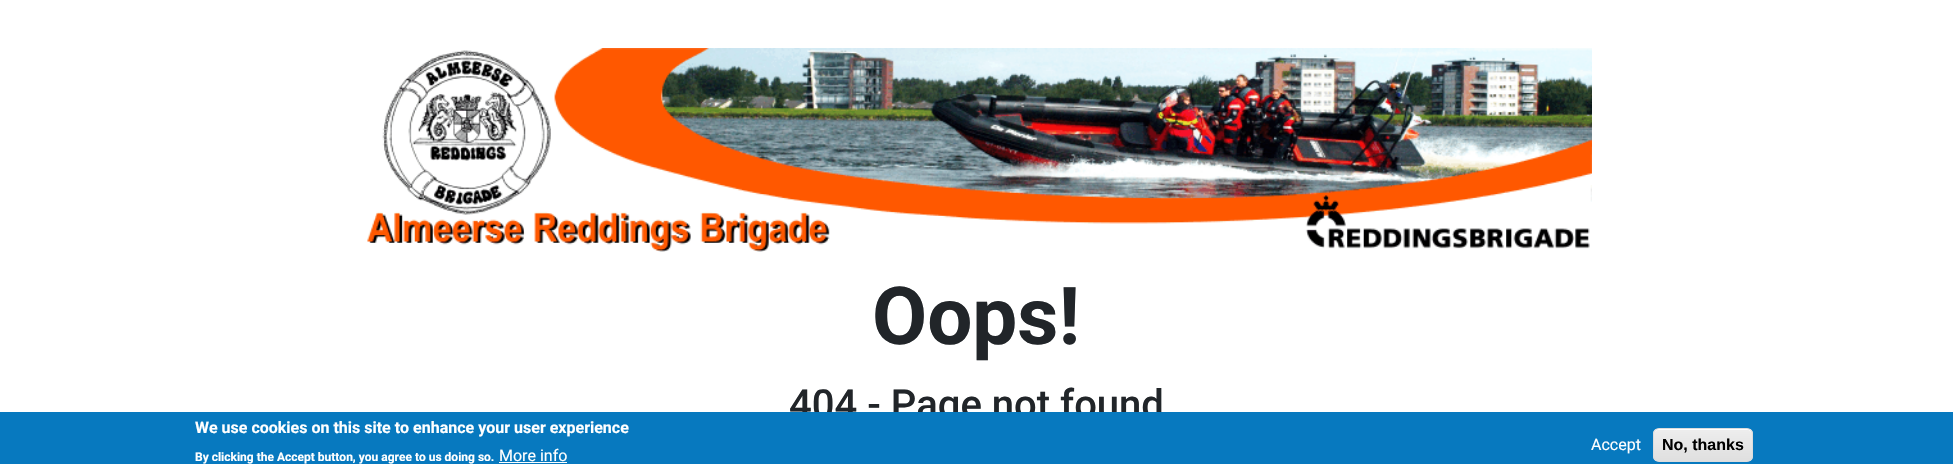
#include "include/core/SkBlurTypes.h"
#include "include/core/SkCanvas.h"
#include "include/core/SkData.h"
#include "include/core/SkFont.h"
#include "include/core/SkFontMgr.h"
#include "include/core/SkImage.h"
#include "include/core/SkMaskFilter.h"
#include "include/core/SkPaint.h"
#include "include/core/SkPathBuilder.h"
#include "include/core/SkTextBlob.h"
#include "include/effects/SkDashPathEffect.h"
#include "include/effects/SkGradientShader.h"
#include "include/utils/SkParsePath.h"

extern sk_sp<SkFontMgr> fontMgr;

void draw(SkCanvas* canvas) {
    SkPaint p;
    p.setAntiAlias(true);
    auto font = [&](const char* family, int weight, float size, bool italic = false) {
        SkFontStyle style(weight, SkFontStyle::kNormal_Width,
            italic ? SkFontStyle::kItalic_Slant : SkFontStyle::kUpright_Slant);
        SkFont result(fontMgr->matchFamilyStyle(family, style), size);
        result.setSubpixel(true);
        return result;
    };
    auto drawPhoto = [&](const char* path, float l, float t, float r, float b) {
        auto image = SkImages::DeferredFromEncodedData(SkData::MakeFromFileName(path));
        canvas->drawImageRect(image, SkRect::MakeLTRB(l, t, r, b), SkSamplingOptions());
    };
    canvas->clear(0xFFFFFFFF);
    drawPhoto("media/1.png", 367, 48, 1592, 252);
    auto font1 = font("Roboto", 700, 80);
    p.setColor(0xFF212529);
    canvas->drawString("Oops!", 872, 344, font1, p);
    auto font2 = font("Roboto", 500, 40);
    canvas->drawString("404 - Page not found", 789, 418, font2, p);
    p.setColor(0xFF0779BF);
    canvas->drawRect(SkRect::MakeLTRB(0, 412, 1953, 464), p);
    auto font3 = font("Roboto", 700, 16);
    p.setColor(0xFFFFFFFF);
    canvas->drawString("We use cookies on this site to enhance your user experience", 195, 433, font3, p);
    auto font4 = font("Roboto", 700, 12);
    canvas->drawString("By clicking the Accept button, you agree to us doing so.", 195, 461, font4, p);
    auto font5 = font("Roboto", 400, 16);
    canvas->drawString("More info", 499, 461, font5, p);
    canvas->drawRect(SkRect::MakeLTRB(499, 462, 567, 463), p);
    canvas->drawString("Accept", 1591, 450, font5, p);
    canvas->save();
    canvas->clipPath(SkPathBuilder().moveTo(1659, 428).lineTo(1747, 428).cubicTo(1750.5f, 428, 1753, 430.5f, 1753, 434).lineTo(1753, 456).cubicTo(1753, 459.5f, 1750.5f, 462, 1747, 462).lineTo(1659, 462).cubicTo(1655.5f, 462, 1653, 459.5f, 1653, 456).lineTo(1653, 434).cubicTo(1653, 430.5f, 1655.5f, 428, 1659, 428).close().detach(), true);
    {
        const SkColor colors[] = {0xFFEDEDED, 0xFFDFDFDF};
        const float stops[] = {0.05f, 1};
        const SkPoint ends[] = {{1703, 429}, {1703, 461}};
        p.setShader(SkGradientShader::MakeLinear(ends, colors, stops, 2, SkTileMode::kClamp));
        p.setAlpha(255);
    }
    canvas->drawRect(SkRect::MakeLTRB(1653, 429, 1753, 461), p);
    canvas->restore();
    p.setShader(nullptr);
    p.setColor(0xFFFFFFFF);
    canvas->drawPath(SkPathBuilder().moveTo(1659, 430).lineTo(1747, 430).cubicTo(1750, 430, 1752, 432, 1752, 435).cubicTo(1752, 425, 1738, 429, 1732, 429).lineTo(1674, 429).cubicTo(1668, 429, 1654, 425, 1654, 435).cubicTo(1654, 432, 1656, 430, 1659, 430).close().detach(), p);
    p.setStyle(SkPaint::kStroke_Style);
    p.setStrokeWidth(1);
    p.setColor(0xFFDCDCDC);
    canvas->drawRoundRect(SkRect::MakeLTRB(1653.5f, 428.5f, 1752.5f, 461.5f), 5.5f, 5.5f, p);
    auto font6 = font("Liberation Sans", 700, 16);
    p.setStyle(SkPaint::kFill_Style);
    p.setColor(0xFF000000);
    canvas->drawString("No, thanks", 1662, 450, font6, p);
}
